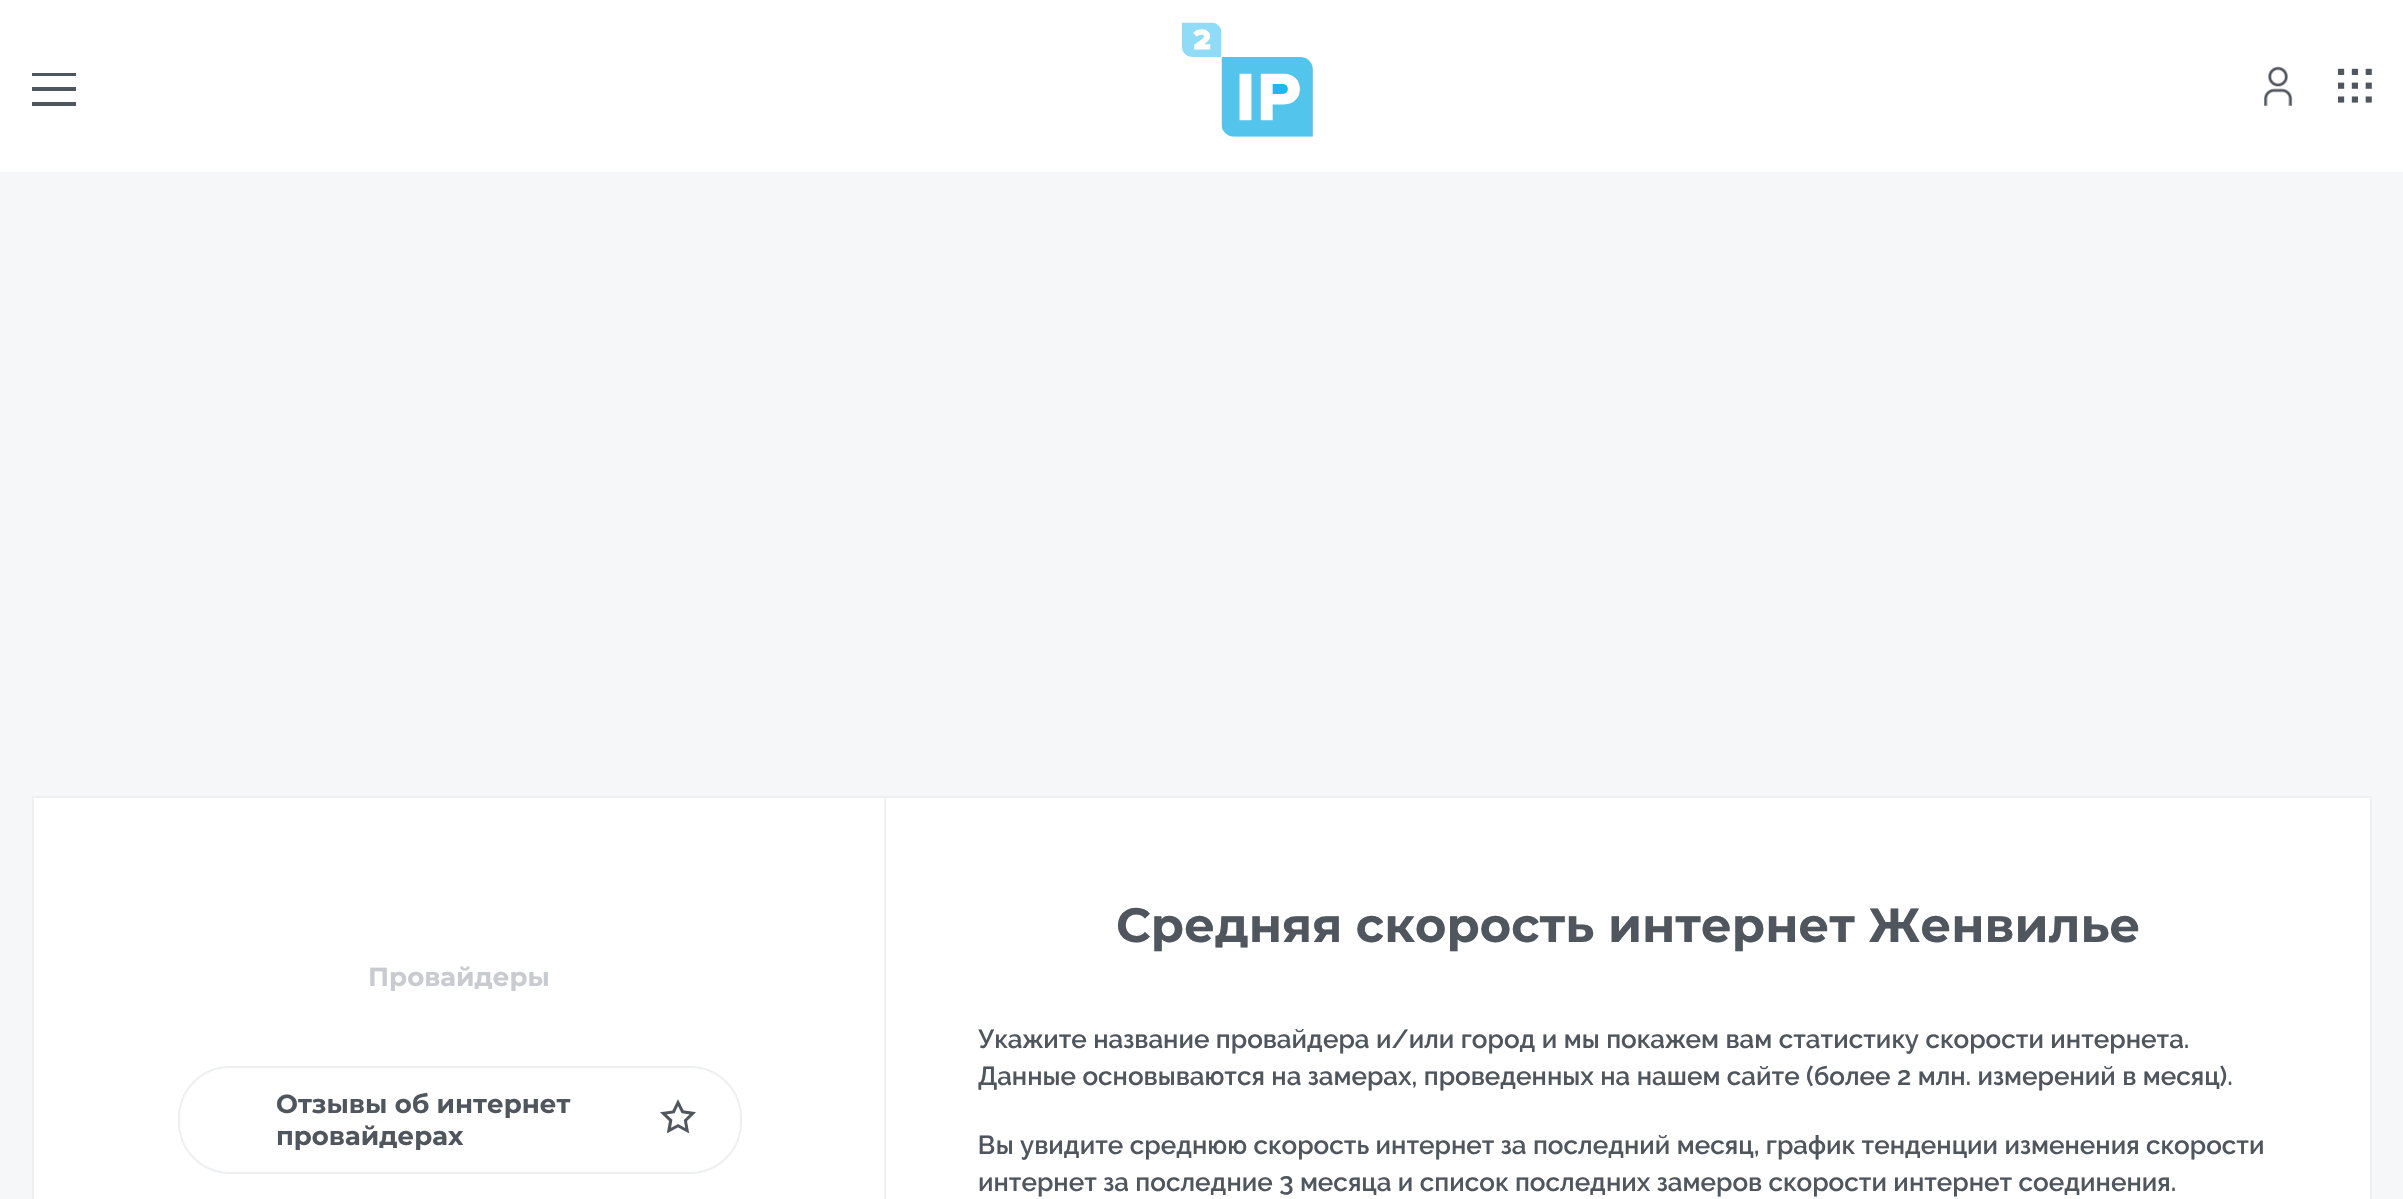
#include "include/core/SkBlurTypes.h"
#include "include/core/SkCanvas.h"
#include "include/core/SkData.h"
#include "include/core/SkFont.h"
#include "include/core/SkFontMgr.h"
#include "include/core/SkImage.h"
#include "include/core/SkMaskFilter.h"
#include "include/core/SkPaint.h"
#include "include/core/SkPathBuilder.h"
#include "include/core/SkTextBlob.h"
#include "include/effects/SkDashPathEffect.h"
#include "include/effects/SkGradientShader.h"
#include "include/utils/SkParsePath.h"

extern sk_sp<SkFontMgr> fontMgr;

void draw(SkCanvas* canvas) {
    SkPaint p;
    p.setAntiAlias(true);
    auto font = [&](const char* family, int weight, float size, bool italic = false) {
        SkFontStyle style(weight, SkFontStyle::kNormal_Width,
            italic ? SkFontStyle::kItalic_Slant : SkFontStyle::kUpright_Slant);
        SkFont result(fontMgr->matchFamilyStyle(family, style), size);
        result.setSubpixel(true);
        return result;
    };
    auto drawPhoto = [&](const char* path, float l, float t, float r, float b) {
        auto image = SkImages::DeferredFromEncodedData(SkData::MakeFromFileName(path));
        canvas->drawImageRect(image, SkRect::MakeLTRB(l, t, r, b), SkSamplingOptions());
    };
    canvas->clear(0xFFF5F7F9);
    p.setColor(0xFFFFFFFF);
    canvas->drawRect(SkRect::MakeLTRB(0, 0, 2403, 172), p);
    p.setColor(0xFF50565E);
    canvas->drawPath(SkPathBuilder().moveTo(32, 76).lineTo(32, 73).lineTo(76, 73).lineTo(76, 76).close().moveTo(32, 91).lineTo(32, 87).lineTo(76, 87).lineTo(76, 91).close().moveTo(32, 106).lineTo(32, 102).lineTo(76, 102).lineTo(76, 106).close().detach(), p);
    drawPhoto("media/1.png", 1182, 22, 1313, 137);
    drawPhoto("media/2.png", 2264, 66, 2293, 106);
    drawPhoto("media/3.png", 2338, 68, 2372, 103);
    p.setStyle(SkPaint::kStroke_Style);
    p.setStrokeWidth(2);
    p.setColor(0xFFEDEFF1);
    canvas->drawRect(SkRect::MakeLTRB(33, 797, 2371, 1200), p);
    p.setStyle(SkPaint::kFill_Style);
    p.setColor(0xFFFFFFFF);
    canvas->drawRect(SkRect::MakeLTRB(34, 798, 884, 1199), p);
    p.setColor(0xFFEDEFF1);
    canvas->drawRect(SkRect::MakeLTRB(884, 798, 886, 1199), p);
    auto font1 = font("Montserrat", 700, 26);
    p.setColor(0xFFC8CCD1);
    canvas->drawString("Провайдеры", 368, 986, font1, p);
    p.setStyle(SkPaint::kStroke_Style);
    p.setColor(0xFFEDEFF1);
    canvas->drawRoundRect(SkRect::MakeLTRB(179, 1067, 741, 1173), 51, 51, p);
    p.setStyle(SkPaint::kFill_Style);
    p.setColor(0xFF50565E);
    canvas->drawString("Отзывы об интернет", 276, 1113, font1, p);
    canvas->drawString("провайдерах", 276, 1145, font1, p);
    drawPhoto("media/4.png", 660, 1099, 696, 1134);
    p.setColor(0xFFFFFFFF);
    canvas->drawRect(SkRect::MakeLTRB(886, 798, 2370, 1199), p);
    auto font2 = font("Montserrat", 700, 48);
    p.setColor(0xFF50565E);
    canvas->drawString("Средняя скорость интернет Женвилье", 1116, 942, font2, p);
    auto font3 = font("Raleway", 600, 26);
    {
        const struct { const char* s; float x, y; } items[] = {
            {"Укажите название провайдера и/или город и мы покажем вам статистику скорости интернета.", 978, 1048},
            {"Данные основываются на замерах, проведенных на нашем сайте (более 2 млн. измерений в месяц).", 978, 1085},
            {"Вы увидите среднюю скорость интернет за последний месяц, график тенденции изменения скорости", 978, 1154},
            {"интернет за последние 3 месяца и список последних замеров скорости интернет соединения.", 978, 1191},
        };
        for (auto [s, x, y] : items) {
            canvas->drawString(s, x, y, font3, p);
        }
    }
}
